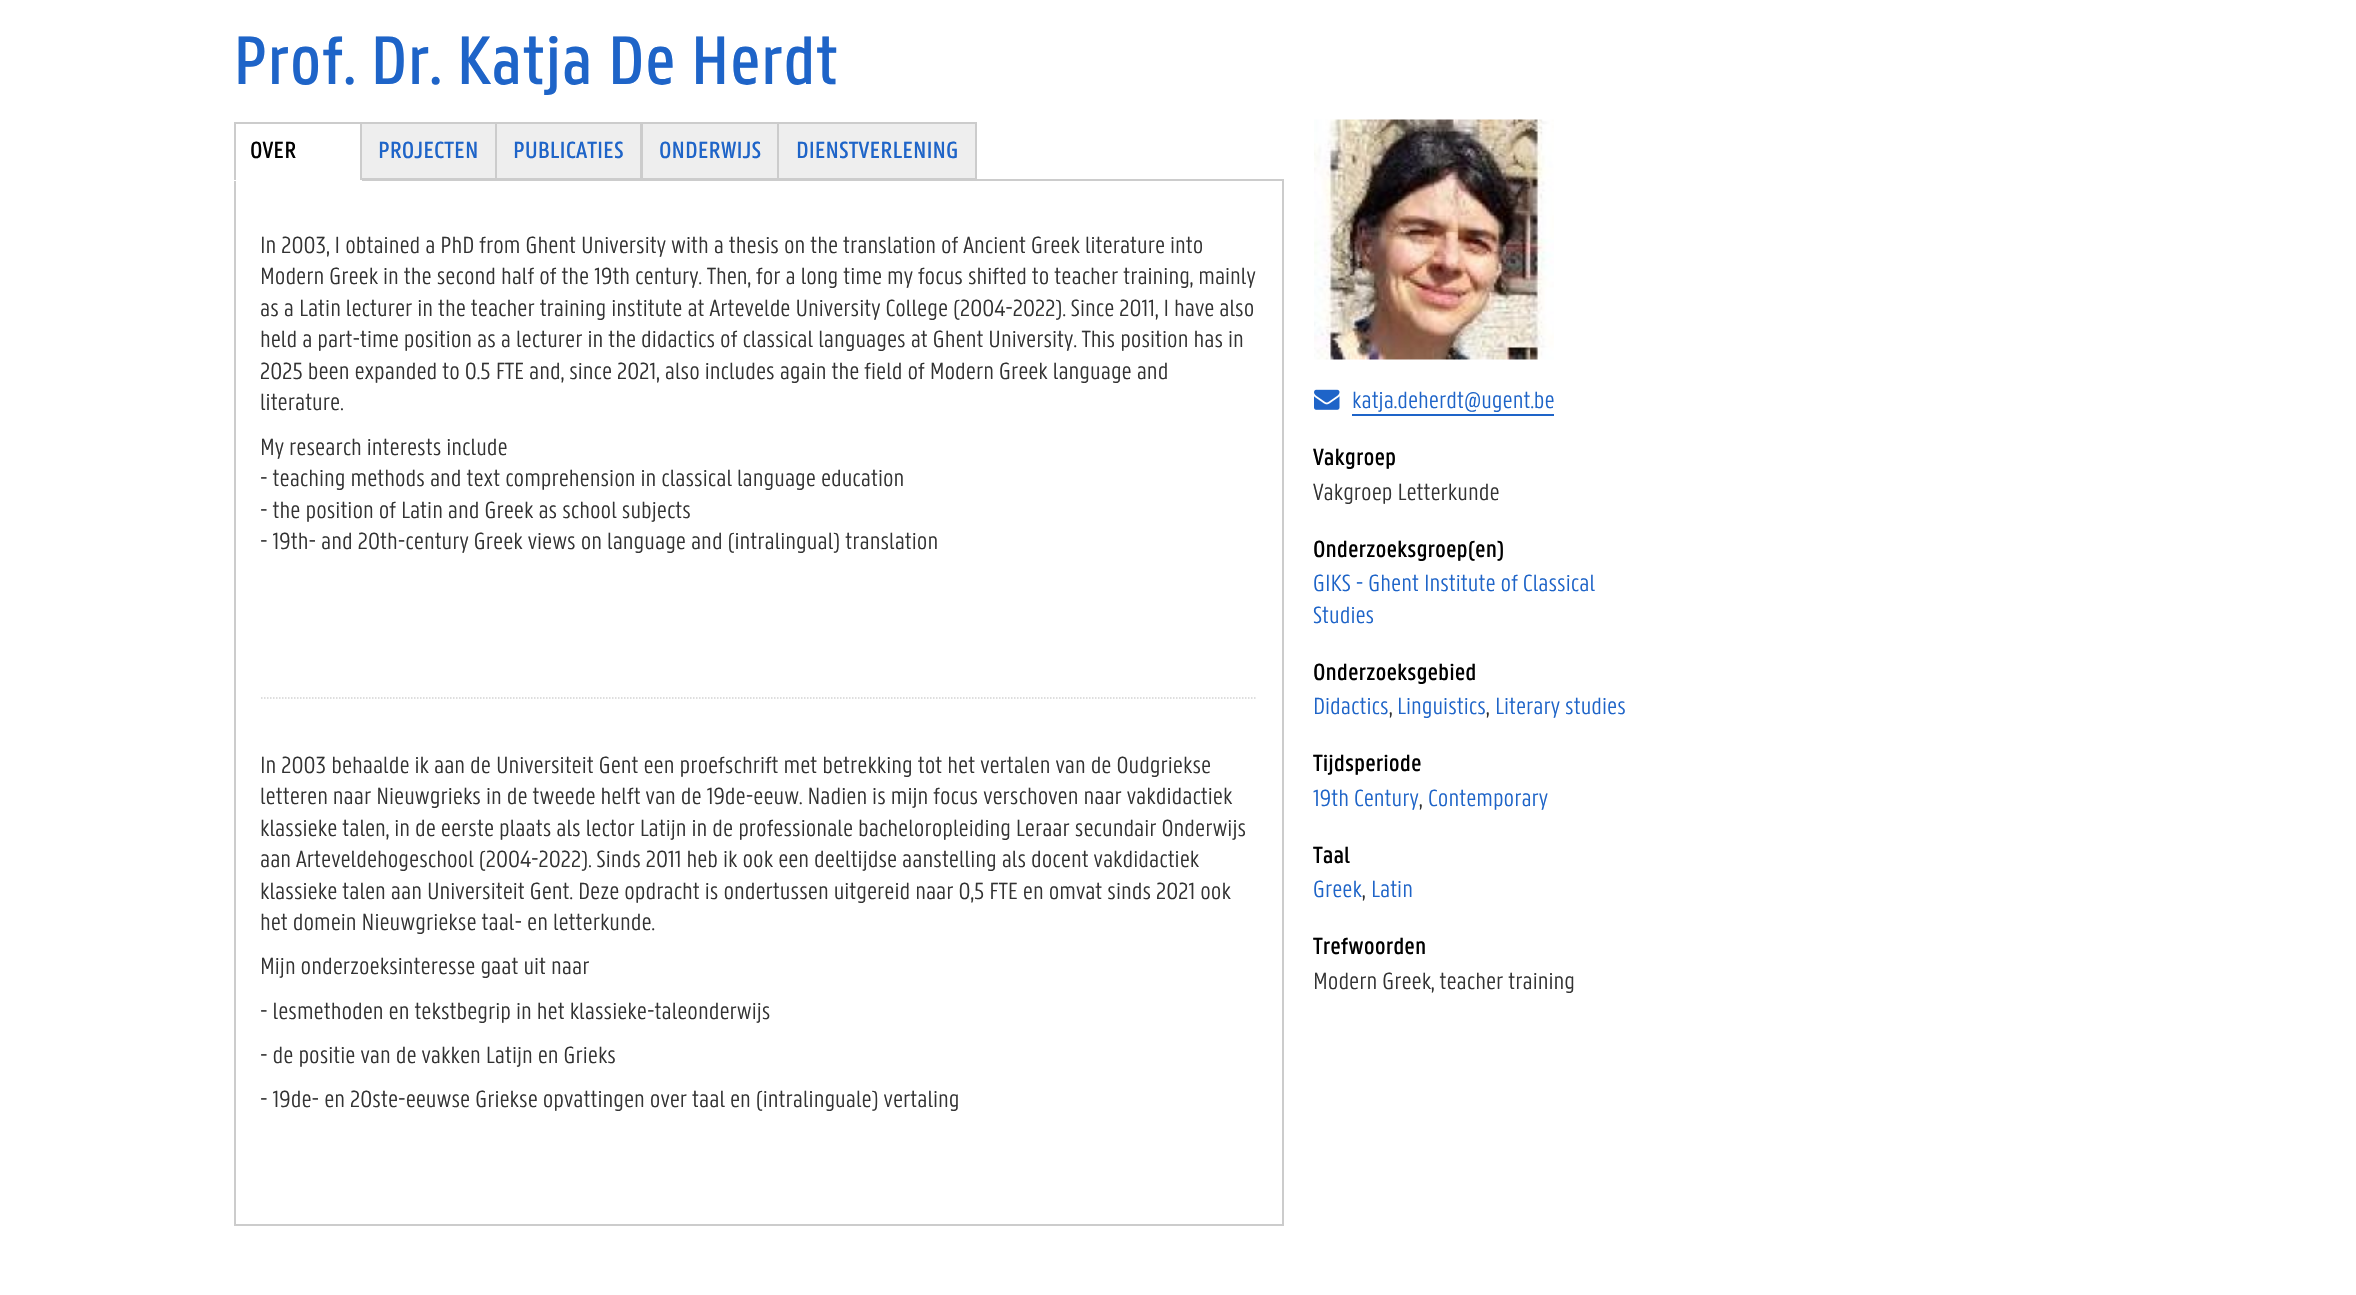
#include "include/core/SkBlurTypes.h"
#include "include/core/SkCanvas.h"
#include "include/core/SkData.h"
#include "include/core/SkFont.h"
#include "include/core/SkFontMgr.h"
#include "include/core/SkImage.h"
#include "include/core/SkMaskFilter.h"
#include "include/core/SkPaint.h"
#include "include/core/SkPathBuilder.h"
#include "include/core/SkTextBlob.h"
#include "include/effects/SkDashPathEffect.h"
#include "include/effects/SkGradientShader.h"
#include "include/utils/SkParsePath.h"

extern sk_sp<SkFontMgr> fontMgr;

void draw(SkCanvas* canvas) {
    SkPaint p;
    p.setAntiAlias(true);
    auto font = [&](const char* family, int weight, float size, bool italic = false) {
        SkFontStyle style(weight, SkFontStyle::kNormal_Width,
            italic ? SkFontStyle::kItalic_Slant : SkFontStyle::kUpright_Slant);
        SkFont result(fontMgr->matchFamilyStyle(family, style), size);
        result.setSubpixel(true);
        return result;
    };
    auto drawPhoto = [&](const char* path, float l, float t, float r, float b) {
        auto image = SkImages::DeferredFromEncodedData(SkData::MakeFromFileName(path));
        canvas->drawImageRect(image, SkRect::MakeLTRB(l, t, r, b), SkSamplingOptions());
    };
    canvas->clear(0xFFFFFFFF);
    auto font1 = font("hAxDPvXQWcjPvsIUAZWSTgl", 500, 75);
    p.setColor(0xFF1E64C8);
    canvas->drawString("Prof. Dr. Katja De Herdt", 233, 84, font1, p);
    p.setColor(0xFFCCCCCC);
    canvas->drawRect(SkRect::MakeLTRB(234, 122, 362, 124), p);
    p.setStyle(SkPaint::kStroke_Style);
    p.setStrokeWidth(2);
    canvas->drawRect(SkRect::MakeLTRB(235, 180, 1283, 1225), p);
    p.setStyle(SkPaint::kFill_Style);
    p.setColor(0xFFFFFFFF);
    canvas->drawRect(SkRect::MakeLTRB(234, 179, 362, 181), p);
    p.setColor(0xFFCCCCCC);
    canvas->drawRect(SkRect::MakeLTRB(234, 122, 236, 180), p);
    auto font2 = font("hAxDPvXQWcjPvsIUAZWSTgl", 500, 25.5f);
    p.setColor(0xFF000000);
    canvas->drawString("OVER", 250, 158, font2, p);
    p.setColor(0xFFEEEEEE);
    canvas->drawRect(SkRect::MakeLTRB(361, 123, 496, 179), p);
    p.setStyle(SkPaint::kStroke_Style);
    p.setColor(0xFFCCCCCC);
    canvas->drawRect(SkRect::MakeLTRB(361, 123, 496, 179), p);
    p.setStyle(SkPaint::kFill_Style);
    p.setColor(0xFF1E64C8);
    canvas->drawString("PROJECTEN", 378, 158, font2, p);
    p.setColor(0xFFEEEEEE);
    canvas->drawRect(SkRect::MakeLTRB(496, 123, 641, 179), p);
    p.setStyle(SkPaint::kStroke_Style);
    p.setColor(0xFFCCCCCC);
    canvas->drawRect(SkRect::MakeLTRB(496, 123, 641, 179), p);
    p.setStyle(SkPaint::kFill_Style);
    p.setColor(0xFF1E64C8);
    canvas->drawString("PUBLICATIES", 513, 158, font2, p);
    p.setColor(0xFFEEEEEE);
    canvas->drawRect(SkRect::MakeLTRB(642, 123, 778, 179), p);
    p.setStyle(SkPaint::kStroke_Style);
    p.setColor(0xFFCCCCCC);
    canvas->drawRect(SkRect::MakeLTRB(642, 123, 778, 179), p);
    p.setStyle(SkPaint::kFill_Style);
    p.setColor(0xFF1E64C8);
    canvas->drawString("ONDERWIJS", 659, 158, font2, p);
    p.setColor(0xFFEEEEEE);
    canvas->drawRect(SkRect::MakeLTRB(778, 123, 976, 179), p);
    p.setStyle(SkPaint::kStroke_Style);
    p.setColor(0xFFCCCCCC);
    canvas->drawRect(SkRect::MakeLTRB(778, 123, 976, 179), p);
    p.setStyle(SkPaint::kFill_Style);
    p.setColor(0xFF1E64C8);
    canvas->drawString("DIENSTVERLENING", 796, 158, font2, p);
    auto font3 = font("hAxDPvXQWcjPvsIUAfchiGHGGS", 300, 25.5f);
    p.setColor(0xFF333333);
    {
        const struct { const char* s; float x, y; } items[] = {
            {"In 2003, I obtained a PhD from Ghent University with a thesis on the translation of Ancient Greek literature into", 260, 253},
            {"Modern Greek in the second half of the 19th century. Then, for a long time my focus shifted to teacher training, mainly", 260, 284},
            {"as a Latin lecturer in the teacher training institute at Artevelde University College (2004-2022). Since 2011, I have also", 260, 316},
            {"held a part-time position as a lecturer in the didactics of classical languages at Ghent University. This position has in", 260, 347},
            {"2025 been expanded to 0.5 FTE and, since 2021, also includes again the field of Modern Greek language and", 260, 379},
            {"literature.", 260, 410},
            {"My research interests include", 260, 455},
            {"- teaching methods and text comprehension in classical language education", 260, 486},
            {"- the position of Latin and Greek as school subjects", 260, 518},
            {"- 19th- and 20th-century Greek views on language and (intralingual) translation", 260, 549},
        };
        for (auto [s, x, y] : items) {
            canvas->drawString(s, x, y, font3, p);
        }
    }
    p.setStyle(SkPaint::kStroke_Style);
    p.setStrokeWidth(1.5f);
    p.setColor(0xFFD3D3D3);
    p.setPathEffect(SkDashPathEffect::Make({{1.5f, 1.5f}}, 0));
    canvas->drawPath(SkPathBuilder().moveTo(261, 698).lineTo(1257, 698).detach(), p);
    p.setPathEffect(nullptr);
    p.setStyle(SkPaint::kFill_Style);
    p.setColor(0xFF333333);
    {
        const struct { const char* s; float x, y; } items[] = {
            {"In 2003 behaalde ik aan de Universiteit Gent een proefschrift met betrekking tot het vertalen van de Oudgriekse", 260, 773},
            {"letteren naar Nieuwgrieks in de tweede helft van de 19de-eeuw. Nadien is mijn focus verschoven naar vakdidactiek", 260, 804},
            {"klassieke talen, in de eerste plaats als lector Latijn in de professionale bacheloropleiding Leraar secundair Onderwijs", 260, 836},
            {"aan Arteveldehogeschool (2004-2022). Sinds 2011 heb ik ook een deeltijdse aanstelling als docent vakdidactiek", 260, 867},
            {"klassieke talen aan Universiteit Gent. Deze opdracht is ondertussen uitgereid naar 0,5 FTE en omvat sinds 2021 ook", 260, 899},
            {"het domein Nieuwgriekse taal- en letterkunde.", 260, 930},
            {"Mijn onderzoeksinteresse gaat uit naar", 260, 974},
            {"- lesmethoden en tekstbegrip in het klassieke-taleonderwijs", 260, 1019},
            {"- de positie van de vakken Latijn en Grieks", 260, 1063},
            {"- 19de- en 20ste-eeuwse Griekse opvattingen over taal en (intralinguale) vertaling", 260, 1107},
        };
        for (auto [s, x, y] : items) {
            canvas->drawString(s, x, y, font3, p);
        }
    }
    drawPhoto("media/1.png", 1314, 119, 1554, 360);
    drawPhoto("media/2.png", 1314, 389, 1340, 410);
    p.setColor(0xFF1E64C8);
    canvas->drawString("katja.deherdt@ugent.be", 1352, 408, font3, p);
    canvas->drawRect(SkRect::MakeLTRB(1352, 414, 1554, 416), p);
    p.setColor(0xFF000000);
    canvas->drawString("Vakgroep", 1313, 465, font2, p);
    p.setColor(0xFF333333);
    canvas->drawString("Vakgroep Letterkunde", 1313, 500, font3, p);
    p.setColor(0xFF000000);
    canvas->drawString("Onderzoeksgroep(en)", 1313, 557, font2, p);
    p.setColor(0xFF1E64C8);
    canvas->drawString("GIKS - Ghent Institute of Classical", 1313, 591, font3, p);
    canvas->drawString("Studies", 1313, 623, font3, p);
    p.setColor(0xFF000000);
    canvas->drawString("Onderzoeksgebied", 1313, 680, font2, p);
    p.setColor(0xFF1E64C8);
    canvas->drawString("Didactics", 1313, 714, font3, p);
    p.setColor(0xFF333333);
    canvas->drawString(",", 1389, 714, font3, p);
    p.setColor(0xFF1E64C8);
    canvas->drawString("Linguistics", 1397, 714, font3, p);
    p.setColor(0xFF333333);
    canvas->drawString(",", 1486, 714, font3, p);
    p.setColor(0xFF1E64C8);
    canvas->drawString("Literary studies", 1495, 714, font3, p);
    p.setColor(0xFF000000);
    canvas->drawString("Tijdsperiode", 1313, 771, font2, p);
    p.setColor(0xFF1E64C8);
    canvas->drawString("19th Century", 1313, 806, font3, p);
    p.setColor(0xFF333333);
    canvas->drawString(",", 1419, 806, font3, p);
    p.setColor(0xFF1E64C8);
    canvas->drawString("Contemporary", 1428, 806, font3, p);
    p.setColor(0xFF000000);
    canvas->drawString("Taal", 1313, 863, font2, p);
    p.setColor(0xFF1E64C8);
    canvas->drawString("Greek", 1313, 897, font3, p);
    p.setColor(0xFF333333);
    canvas->drawString(",", 1362, 897, font3, p);
    p.setColor(0xFF1E64C8);
    canvas->drawString("Latin", 1371, 897, font3, p);
    p.setColor(0xFF000000);
    canvas->drawString("Trefwoorden", 1313, 954, font2, p);
    p.setColor(0xFF333333);
    canvas->drawString("Modern Greek, teacher training", 1313, 989, font3, p);
}
